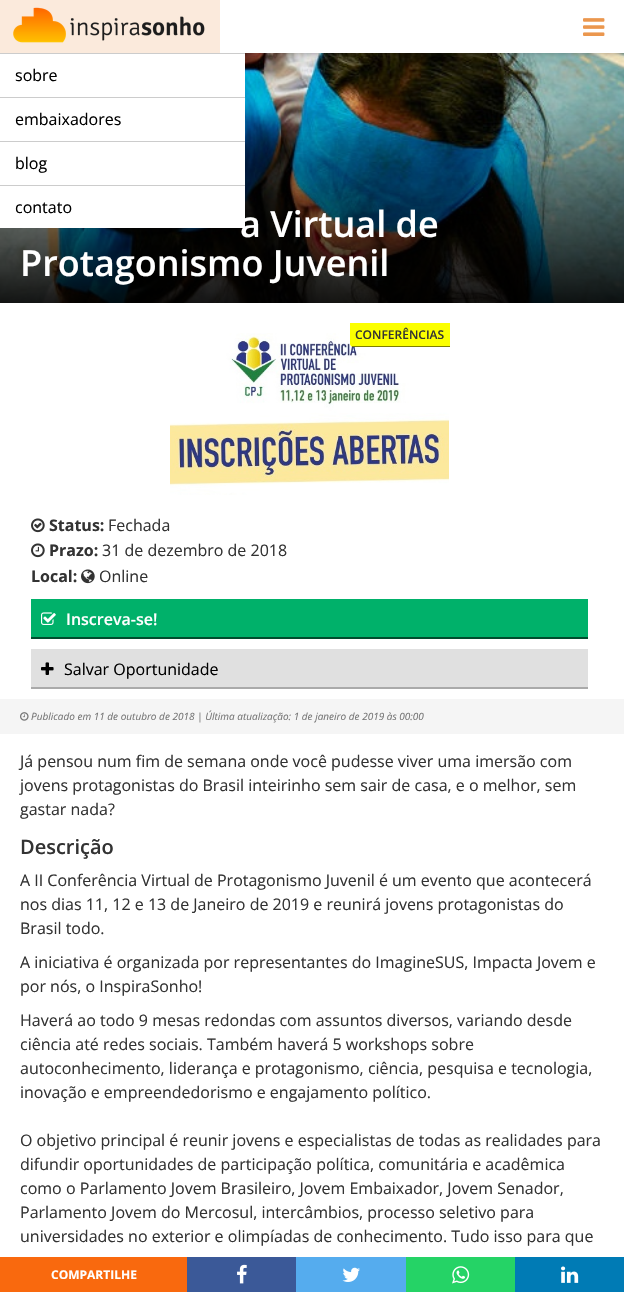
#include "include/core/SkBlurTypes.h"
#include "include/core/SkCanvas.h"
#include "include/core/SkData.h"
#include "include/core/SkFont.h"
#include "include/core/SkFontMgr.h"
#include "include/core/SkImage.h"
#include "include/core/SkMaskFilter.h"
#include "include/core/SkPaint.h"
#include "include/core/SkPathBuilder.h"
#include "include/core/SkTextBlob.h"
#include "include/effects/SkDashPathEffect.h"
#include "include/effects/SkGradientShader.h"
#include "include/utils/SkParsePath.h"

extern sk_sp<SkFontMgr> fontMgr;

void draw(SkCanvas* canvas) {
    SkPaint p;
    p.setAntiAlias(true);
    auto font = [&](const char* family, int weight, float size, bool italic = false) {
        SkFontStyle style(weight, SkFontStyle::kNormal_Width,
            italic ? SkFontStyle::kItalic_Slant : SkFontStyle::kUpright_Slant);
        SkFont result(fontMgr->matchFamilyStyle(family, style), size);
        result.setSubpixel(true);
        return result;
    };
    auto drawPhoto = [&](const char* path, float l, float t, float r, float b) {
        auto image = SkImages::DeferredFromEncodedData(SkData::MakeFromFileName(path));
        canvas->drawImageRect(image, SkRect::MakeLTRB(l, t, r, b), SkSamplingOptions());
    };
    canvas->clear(0xFFFFFFFF);
    drawPhoto("media/3.png", 0, 53, 624, 303);
    p.setColor(0x4D000000);
    p.setMaskFilter(SkMaskFilter::MakeBlur(kNormal_SkBlurStyle, 3));
    canvas->drawRect(SkRect::MakeLTRB(0, 0, 624, 53), p);
    p.setMaskFilter(nullptr);
    p.setColor(0xFFFFFFFF);
    canvas->drawRect(SkRect::MakeLTRB(220, 0, 624, 53), p);
    drawPhoto("media/1.png", 583, 18, 605, 36);
    p.setColor(0xFFFBEADC);
    canvas->drawRect(SkRect::MakeLTRB(0, 0, 220, 53), p);
    drawPhoto("media/2.png", 13, 7, 205, 43);
    p.setColor(0xFFFFFFFF);
    canvas->drawRect(SkRect::MakeLTRB(0, 54, 245, 97), p);
    p.setColor(0xFFCCCCCC);
    canvas->drawRect(SkRect::MakeLTRB(0, 53, 245, 54), p);
    auto font1 = font("Open Sans", 400, 16);
    p.setColor(0xFF000000);
    canvas->drawString("sobre", 15, 81, font1, p);
    p.setColor(0xFFFFFFFF);
    canvas->drawRect(SkRect::MakeLTRB(0, 98, 245, 141), p);
    p.setColor(0xFFCCCCCC);
    canvas->drawRect(SkRect::MakeLTRB(0, 97, 245, 98), p);
    p.setColor(0xFF000000);
    canvas->drawString("embaixadores", 15, 125, font1, p);
    p.setColor(0xFFFFFFFF);
    canvas->drawRect(SkRect::MakeLTRB(0, 142, 245, 185), p);
    p.setColor(0xFFCCCCCC);
    canvas->drawRect(SkRect::MakeLTRB(0, 141, 245, 142), p);
    p.setColor(0xFF000000);
    canvas->drawString("blog", 15, 169, font1, p);
    p.setColor(0xFFFFFFFF);
    canvas->drawRect(SkRect::MakeLTRB(0, 186, 245, 228), p);
    p.setColor(0xFFCCCCCC);
    canvas->drawRect(SkRect::MakeLTRB(0, 185, 245, 186), p);
    p.setColor(0xFF000000);
    canvas->drawString("contato", 15, 213, font1, p);
    auto font2 = font("Open Sans", 600, 36);
    p.setColor(0xFFFFFFFF);
    canvas->drawString("a Virtual de", 240, 237, font2, p);
    canvas->drawString("Protagonismo Juvenil", 20, 276, font2, p);
    drawPhoto("media/4.png", 170, 333, 449, 495);
    p.setColor(0xFFFBFF00);
    canvas->drawPath(SkPathBuilder().moveTo(350, 323).lineTo(450, 323).lineTo(450, 347).lineTo(353, 347).cubicTo(351.5f, 347, 350, 345.5f, 350, 344).close().detach(), p);
    p.setColor(0xFF7E7F00);
    canvas->drawRect(SkRect::MakeLTRB(352, 346, 450, 347), p);
    auto font3 = font("Open Sans", 600, 12);
    p.setColor(0xFF333333);
    canvas->drawString("CONFERÊNCIAS", 355, 339, font3, p);
    drawPhoto("media/5.png", 31, 518, 45, 533);
    auto font4 = font("Open Sans", 700, 16);
    canvas->drawString("Status:", 49, 531, font4, p);
    canvas->drawString("Fechada", 108, 531, font1, p);
    drawPhoto("media/6.png", 31, 543, 45, 558);
    canvas->drawString("Prazo:", 49, 556, font4, p);
    canvas->drawString("31 de dezembro de 2018", 102, 556, font1, p);
    canvas->drawString("Local:", 31, 582, font4, p);
    drawPhoto("media/7.png", 81, 569, 95, 584);
    canvas->drawString("Online", 99, 582, font1, p);
    p.setColor(0xFF00B16A);
    canvas->drawRect(SkRect::MakeLTRB(31, 599, 588, 637), p);
    p.setColor(0xFF004D2E);
    canvas->drawRect(SkRect::MakeLTRB(31, 637, 588, 639), p);
    drawPhoto("media/8.png", 41, 612, 56, 625);
    auto font5 = font("Open Sans", 600, 16);
    p.setColor(0xFFFFFFFF);
    canvas->drawString("Inscreva-se!", 66, 625, font5, p);
    p.setColor(0xFFE0E0E0);
    canvas->drawRect(SkRect::MakeLTRB(31, 649, 588, 687), p);
    p.setColor(0xFFAAAAAA);
    canvas->drawRect(SkRect::MakeLTRB(31, 687, 588, 689), p);
    drawPhoto("media/9.png", 41, 662, 54, 675);
    p.setColor(0xFF000000);
    canvas->drawString("Salvar Oportunidade", 64, 675, font1, p);
    p.setColor(0xFFF5F5F5);
    canvas->drawRect(SkRect::MakeLTRB(0, 699, 624, 734), p);
    drawPhoto("media/10.png", 20, 712, 29, 721);
    auto font6 = font("Open Sans", 400, 10, true);
    p.setColor(0xFF757575);
    canvas->drawString("Publicado em 11 de outubro de 2018 | Última atualização: 1 de janeiro de 2019 às 00:00", 31, 720, font6, p);
    p.setColor(0xFF333333);
    {
        const struct { const char* s; float x, y; } items[] = {
            {"Já pensou num fim de semana onde você pudesse viver uma imersão com", 20, 767},
            {"jovens protagonistas do Brasil inteirinho sem sair de casa, e o melhor, sem", 20, 791},
            {"gastar nada?", 20, 815},
        };
        for (auto [s, x, y] : items) {
            canvas->drawString(s, x, y, font1, p);
        }
    }
    auto font7 = font("Open Sans", 600, 20);
    canvas->drawString("Descrição", 20, 854, font7, p);
    {
        const struct { const char* s; float x, y; } items[] = {
            {"A II Conferência Virtual de Protagonismo Juvenil é um evento que acontecerá", 20, 886},
            {"nos dias 11, 12 e 13 de Janeiro de 2019 e reunirá jovens protagonistas do", 20, 910},
            {"Brasil todo.", 20, 934},
            {"A iniciativa é organizada por representantes do ImagineSUS, Impacta Jovem e", 20, 968},
            {"por nós, o InspiraSonho!", 20, 992},
            {"Haverá ao todo 9 mesas redondas com assuntos diversos, variando desde", 20, 1026},
            {"ciência até redes sociais. Também haverá 5 workshops sobre", 20, 1050},
            {"autoconhecimento, liderança e protagonismo, ciência, pesquisa e tecnologia,", 20, 1074},
            {"inovação e empreendedorismo e engajamento político.", 20, 1098},
            {"O objetivo principal é reunir jovens e especialistas de todas as realidades para", 20, 1146},
            {"difundir oportunidades de participação política, comunitária e acadêmica", 20, 1170},
            {"como o Parlamento Jovem Brasileiro, Jovem Embaixador, Jovem Senador,", 20, 1194},
            {"Parlamento Jovem do Mercosul, intercâmbios, processo seletivo para", 20, 1218},
            {"universidades no exterior e olimpíadas de conhecimento. Tudo isso para que", 20, 1242},
        };
        for (auto [s, x, y] : items) {
            canvas->drawString(s, x, y, font1, p);
        }
    }
    p.setColor(0xFFF9690E);
    canvas->drawRect(SkRect::MakeLTRB(0, 1257, 187, 1292), p);
    auto font8 = font("Open Sans", 700, 12);
    p.setColor(0xFFFFFFFF);
    canvas->drawString("COMPARTILHE", 51, 1279, font8, p);
    p.setColor(0xFF3B5998);
    canvas->drawRect(SkRect::MakeLTRB(187, 1257, 296, 1292), p);
    drawPhoto("media/11.png", 237, 1264, 247, 1284);
    p.setColor(0xFF55ACEE);
    canvas->drawRect(SkRect::MakeLTRB(296, 1257, 406, 1292), p);
    drawPhoto("media/12.png", 342, 1267, 360, 1282);
    p.setColor(0xFF25D366);
    canvas->drawRect(SkRect::MakeLTRB(406, 1257, 515, 1292), p);
    drawPhoto("media/13.png", 452, 1266, 470, 1284);
    p.setColor(0xFF007BB5);
    canvas->drawRect(SkRect::MakeLTRB(515, 1257, 624, 1292), p);
    drawPhoto("media/14.png", 561, 1266, 579, 1283);
}
